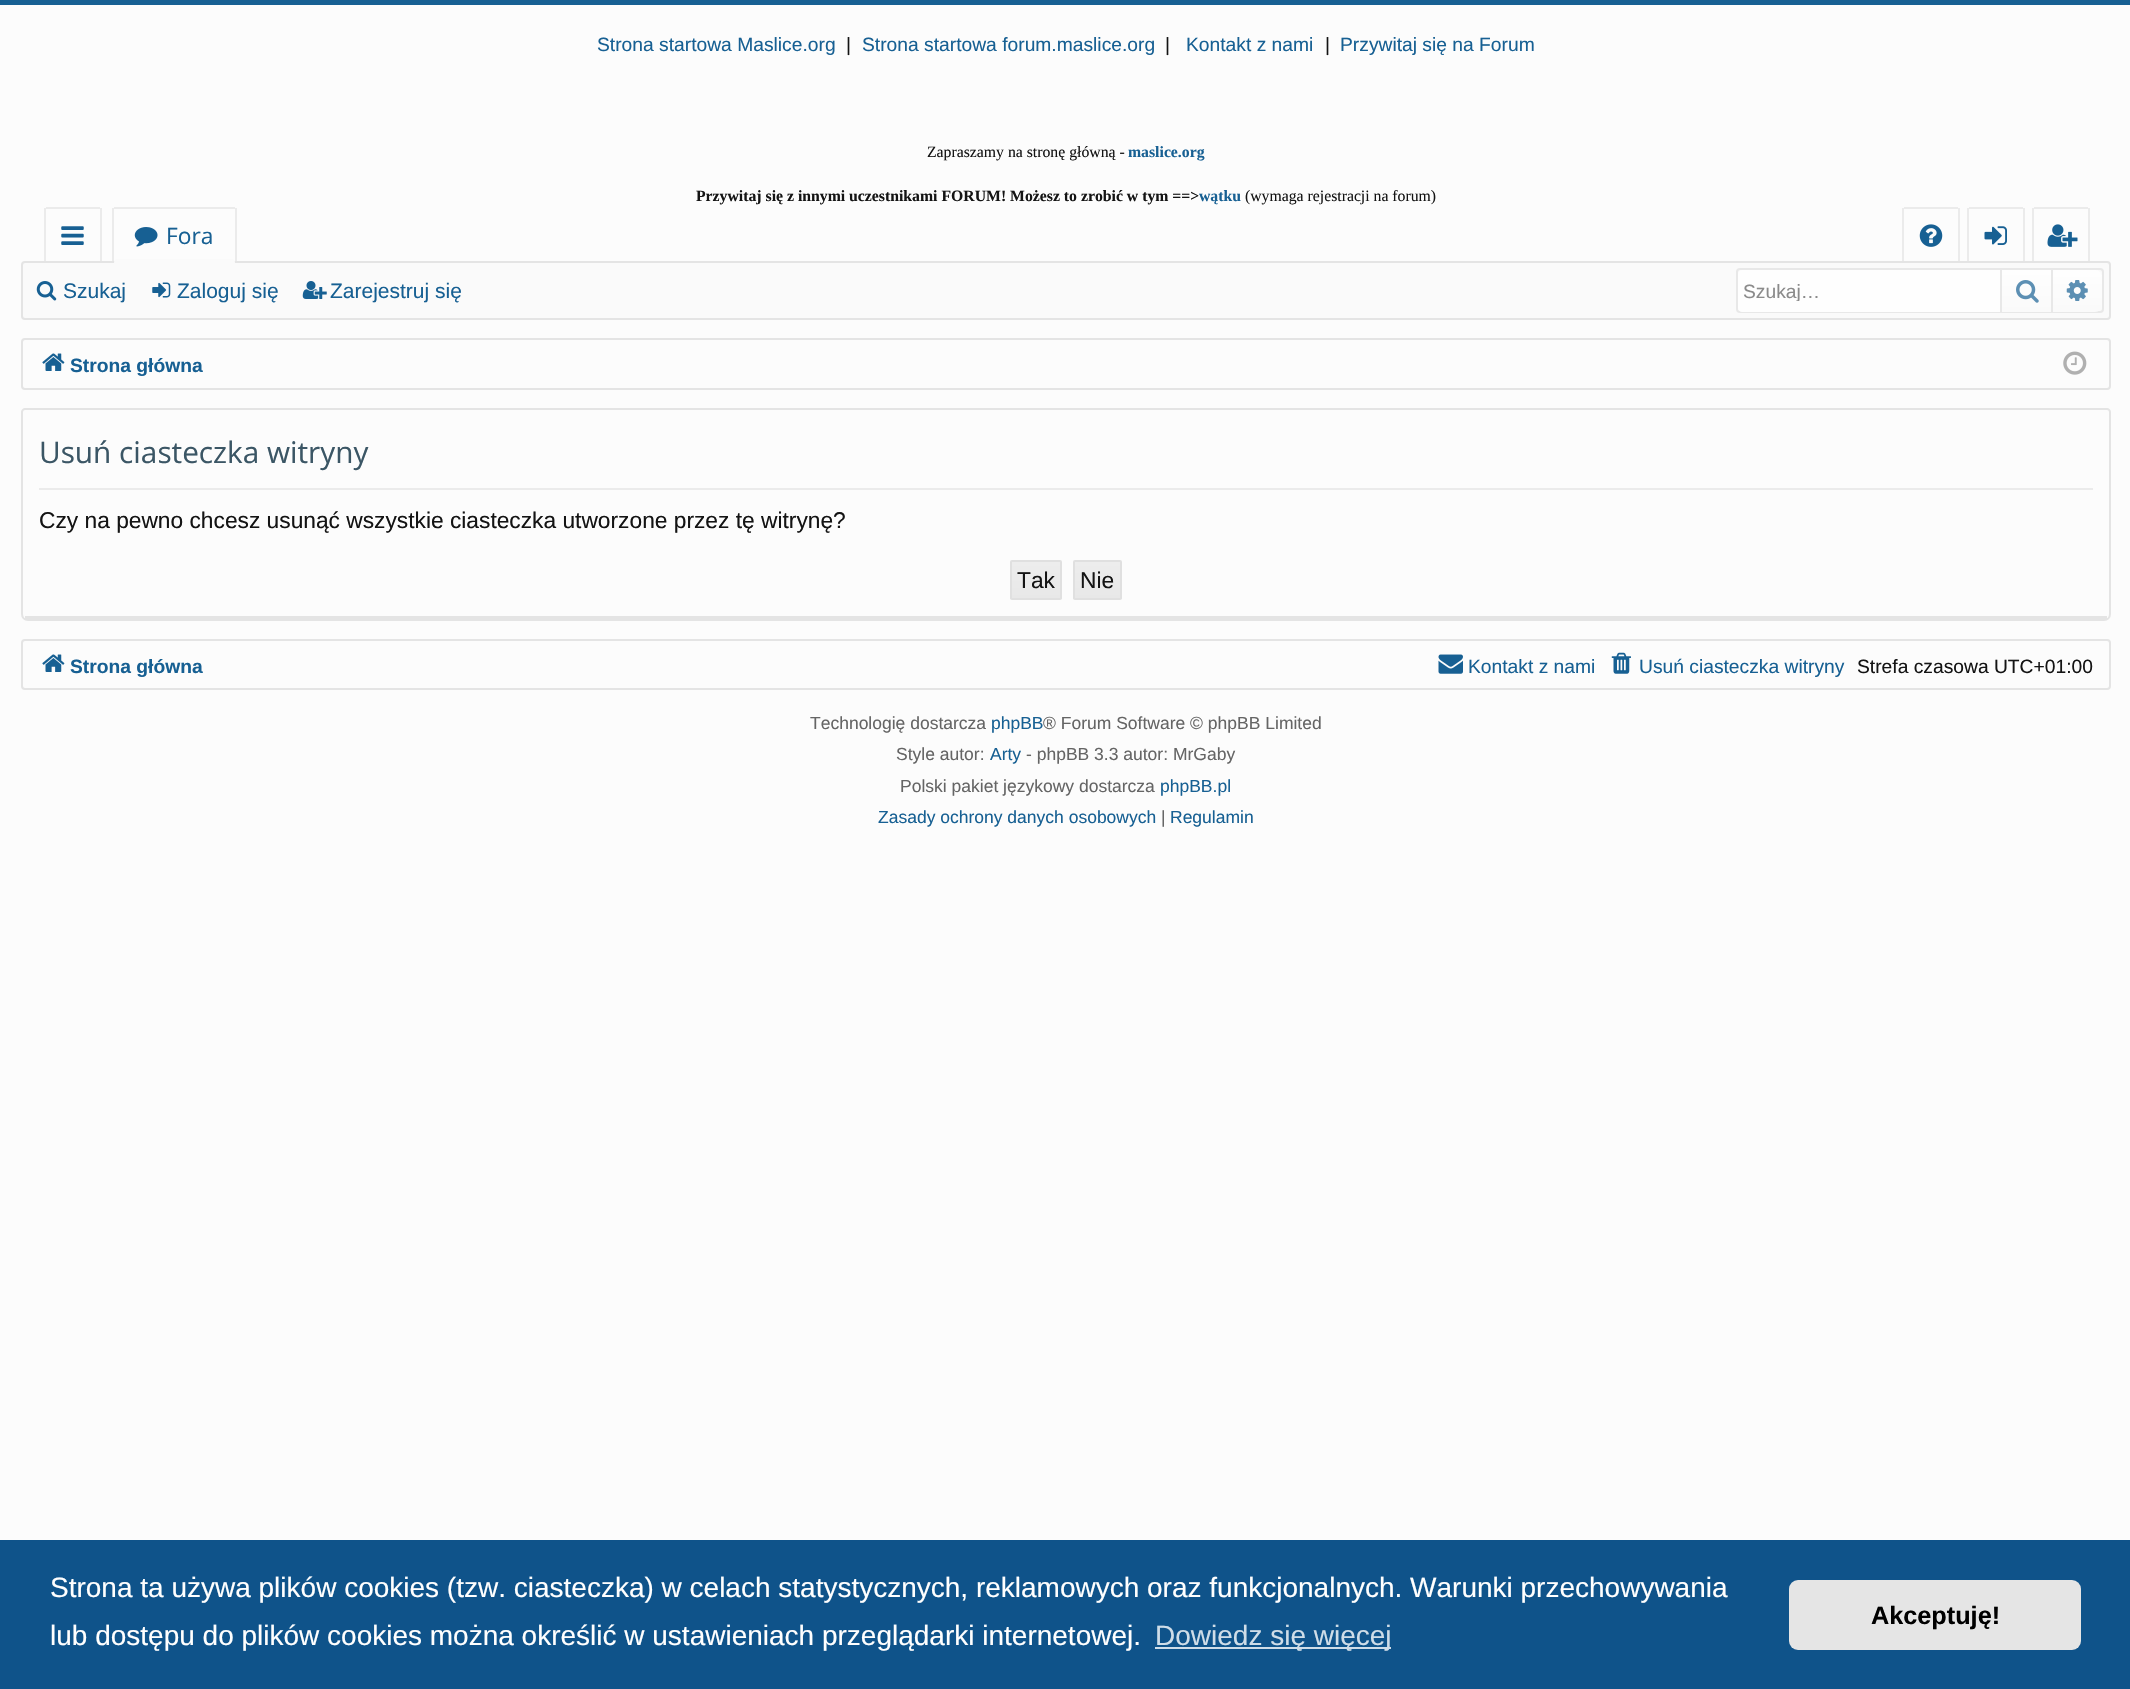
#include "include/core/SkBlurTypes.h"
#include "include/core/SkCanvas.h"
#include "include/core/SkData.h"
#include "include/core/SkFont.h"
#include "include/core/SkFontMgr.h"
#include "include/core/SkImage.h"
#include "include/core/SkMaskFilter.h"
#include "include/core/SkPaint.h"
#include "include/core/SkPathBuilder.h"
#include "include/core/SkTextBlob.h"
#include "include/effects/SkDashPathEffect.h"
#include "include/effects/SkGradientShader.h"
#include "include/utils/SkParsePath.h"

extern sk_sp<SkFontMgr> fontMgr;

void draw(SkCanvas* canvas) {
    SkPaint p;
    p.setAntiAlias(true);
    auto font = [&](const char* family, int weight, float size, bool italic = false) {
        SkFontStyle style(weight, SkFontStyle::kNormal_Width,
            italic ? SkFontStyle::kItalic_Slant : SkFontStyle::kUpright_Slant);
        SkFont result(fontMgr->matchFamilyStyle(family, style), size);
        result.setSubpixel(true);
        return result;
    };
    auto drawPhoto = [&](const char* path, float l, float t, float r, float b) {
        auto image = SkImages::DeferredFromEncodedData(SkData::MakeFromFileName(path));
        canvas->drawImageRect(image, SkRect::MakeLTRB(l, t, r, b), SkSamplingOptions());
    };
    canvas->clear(0xFFFCFCFC);
    p.setColor(0xFF176093);
    canvas->drawRect(SkRect::MakeLTRB(0, 0, 2130, 5), p);
    auto font1 = font("Liberation Sans", 400, 19.25f);
    canvas->drawString("Strona startowa Maslice.org", 597, 51, font1, p);
    p.setColor(0xFF141414);
    canvas->drawString("|", 846, 51, font1, p);
    p.setColor(0xFF176093);
    canvas->drawString("Strona startowa forum.maslice.org", 862, 51, font1, p);
    p.setColor(0xFF141414);
    canvas->drawString("|", 1165, 51, font1, p);
    p.setColor(0xFF176093);
    canvas->drawString("Kontakt z nami", 1186, 51, font1, p);
    p.setColor(0xFF141414);
    canvas->drawString("|", 1325, 51, font1, p);
    p.setColor(0xFF176093);
    canvas->drawString("Przywitaj się na Forum", 1340, 51, font1, p);
    auto font2 = font("Liberation Serif", 700, 15.75f);
    canvas->drawString("maslice.org", 1128, 157, font2, p);
    p.setColor(0xFF141414);
    canvas->drawString("Przywitaj się z innymi uczestnikami FORUM! Możesz to zrobić w tym ==>", 696, 201, font2, p);
    p.setColor(0xFF176093);
    canvas->drawString("wątku", 1199, 201, font2, p);
    auto font3 = font("Liberation Serif", 400, 15.75f);
    p.setColor(0xFF141414);
    canvas->drawString("Zapraszamy na stronę główną -", 927, 157, font3, p);
    canvas->drawString("(wymaga rejestracji na forum)", 1245, 201, font3, p);
    {
        const struct { float l, t, r, b; SkColor color; } items[] = {
            {46, 207, 100, 209, 0xFFEBEBEB},
            {100, 208, 102, 263, 0xFFEBEBEB},
            {44, 208, 46, 263, 0xFFEBEBEB},
        };
        for (auto [l, t, r, b, color] : items) {
            p.setColor(color);
            canvas->drawRect(SkRect::MakeLTRB(l, t, r, b), p);
        }
    }
    drawPhoto("media/1.png", 61, 226, 84, 245);
    {
        const struct { float l, t, r, b; SkColor color; } items[] = {
            {114, 207, 235, 209, 0xFFEBEBEB},
            {235, 208, 237, 263, 0xFFEBEBEB},
            {112, 208, 114, 263, 0xFFEBEBEB},
        };
        for (auto [l, t, r, b, color] : items) {
            p.setColor(color);
            canvas->drawRect(SkRect::MakeLTRB(l, t, r, b), p);
        }
    }
    drawPhoto("media/2.png", 134, 227, 158, 247);
    auto font4 = font("Open Sans", 400, 22.75f);
    p.setColor(0xFF176093);
    canvas->drawString("Fora", 166, 244, font4, p);
    {
        const struct { float l, t, r, b; SkColor color; } items[] = {
            {1958, 208, 1960, 263, 0xFFEBEBEB},
            {1902, 208, 1904, 263, 0xFFEBEBEB},
            {2023, 208, 2025, 263, 0xFFEBEBEB},
            {1967, 208, 1969, 263, 0xFFEBEBEB},
            {2088, 208, 2090, 263, 0xFFEBEBEB},
            {2032, 208, 2034, 263, 0xFFEBEBEB},
        };
        for (auto [l, t, r, b, color] : items) {
            p.setColor(color);
            canvas->drawRect(SkRect::MakeLTRB(l, t, r, b), p);
        }
    }
    p.setColor(0xFFFAFAFA);
    canvas->drawRoundRect(SkRect::MakeLTRB(22, 262, 2110, 319), 3, 3, p);
    p.setStyle(SkPaint::kStroke_Style);
    p.setStrokeWidth(2);
    p.setColor(0xFFE4E4E4);
    canvas->drawRoundRect(SkRect::MakeLTRB(22, 262, 2110, 319), 3, 3, p);
    p.setStyle(SkPaint::kFill_Style);
    p.setColor(0xFFFAFAFA);
    canvas->drawPath(SkPathBuilder().moveTo(117.5f, 259).lineTo(231.5f, 259).cubicTo(233.5f, 259, 235, 260.5f, 235, 262.5f).lineTo(235, 266).lineTo(114, 266).lineTo(114, 262.5f).cubicTo(114, 260.5f, 115.5f, 259, 117.5f, 259).close().detach(), p);
    p.setColor(0xFFEBEBEB);
    canvas->drawRect(SkRect::MakeLTRB(1904, 207, 1958, 209), p);
    drawPhoto("media/3.png", 1919, 224, 1943, 247);
    canvas->drawRect(SkRect::MakeLTRB(1969, 207, 2023, 209), p);
    drawPhoto("media/4.png", 1984, 226, 2007, 245);
    canvas->drawRect(SkRect::MakeLTRB(2034, 207, 2088, 209), p);
    drawPhoto("media/5.png", 2047, 224, 2078, 247);
    drawPhoto("media/6.png", 36, 281, 57, 301);
    auto font5 = font("Liberation Sans", 400, 21);
    p.setColor(0xFF176093);
    canvas->drawString("Szukaj", 63, 298, font5, p);
    drawPhoto("media/7.png", 152, 282, 171, 298);
    canvas->drawString("Zaloguj się", 177, 298, font5, p);
    drawPhoto("media/8.png", 302, 281, 327, 299);
    canvas->drawString("Zarejestruj się", 330, 298, font5, p);
    p.setStyle(SkPaint::kStroke_Style);
    p.setColor(0xFFE8E8E8);
    canvas->drawRoundRect(SkRect::MakeLTRB(1737, 269, 2103, 312), 3, 3, p);
    p.setStyle(SkPaint::kFill_Style);
    p.setColor(0xFFFEFEFE);
    canvas->drawPath(SkPathBuilder().moveTo(1742, 270).lineTo(2000, 270).lineTo(2000, 312).lineTo(1742, 312).cubicTo(1740, 312, 1738, 310, 1738, 308).lineTo(1738, 274).cubicTo(1738, 272, 1740, 270, 1742, 270).close().detach(), p);
    canvas->save();
    canvas->clipRect(SkRect::MakeLTRB(1743, 280, 1988, 301));
    p.setColor(0xFF8B8B8B);
    canvas->drawString("Szukaj…", 1743, 298, font1, p);
    canvas->restore();
    {
        const SkColor colors[] = {0xFFFEFEFE, 0xFFFAFAFA};
        const float stops[] = {0, 1};
        const SkPoint ends[] = {{2027, 270}, {2027, 312}};
        p.setShader(SkGradientShader::MakeLinear(ends, colors, stops, 2, SkTileMode::kClamp));
        p.setAlpha(255);
    }
    canvas->drawRect(SkRect::MakeLTRB(2002, 270, 2051, 312), p);
    p.setShader(nullptr);
    p.setColor(0xFFE8E8E8);
    canvas->drawRect(SkRect::MakeLTRB(2051, 270, 2053, 312), p);
    canvas->drawRect(SkRect::MakeLTRB(2000, 270, 2002, 312), p);
    drawPhoto("media/9.png", 2016, 280, 2039, 303);
    p.setColor(0xFFFAFAFA);
    canvas->drawPath(SkPathBuilder().moveTo(2053, 270).lineTo(2095, 270).cubicTo(2099, 270, 2102, 273, 2102, 277).lineTo(2102, 305).cubicTo(2102, 309, 2099, 312, 2095, 312).lineTo(2053, 312).close().detach(), p);
    {
        const SkColor colors[] = {0xFFFEFEFE, 0x00FEFEFE};
        const float stops[] = {0, 1};
        const SkPoint ends[] = {{2077, 270}, {2077, 312}};
        p.setShader(SkGradientShader::MakeLinear(ends, colors, stops, 2, SkTileMode::kClamp));
        p.setAlpha(255);
    }
    canvas->drawPath(SkPathBuilder().moveTo(2053, 270).lineTo(2095, 270).cubicTo(2099, 270, 2102, 273, 2102, 277).lineTo(2102, 305).cubicTo(2102, 309, 2099, 312, 2095, 312).lineTo(2053, 312).close().detach(), p);
    drawPhoto("media/10.png", 2066, 280, 2088, 301);
    p.setStyle(SkPaint::kStroke_Style);
    p.setShader(nullptr);
    p.setColor(0xFFE4E4E4);
    canvas->drawRoundRect(SkRect::MakeLTRB(22, 339, 2110, 389), 3, 3, p);
    drawPhoto("media/11.png", 42, 353, 65, 371);
    auto font6 = font("Liberation Sans", 700, 19.25f);
    p.setStyle(SkPaint::kFill_Style);
    p.setColor(0xFF176093);
    canvas->drawString("Strona główna", 70, 372, font6, p);
    drawPhoto("media/12.png", 2063, 351, 2087, 375);
    p.setStyle(SkPaint::kStroke_Style);
    p.setColor(0xFFE4E4E4);
    canvas->drawPath(SkPathBuilder().moveTo(25, 409).lineTo(2107, 409).cubicTo(2108.5f, 409, 2110, 410.5f, 2110, 412).lineTo(2110, 614).cubicTo(2110, 617.5f, 2107.5f, 620, 2104, 620).lineTo(28, 620).cubicTo(24.5f, 620, 22, 617.5f, 22, 614).lineTo(22, 412).cubicTo(22, 410.5f, 23.5f, 409, 25, 409).close().detach(), p);
    p.setStyle(SkPaint::kFill_Style);
    canvas->drawRect(SkRect::MakeLTRB(25, 616, 2107, 619), p);
    p.setColor(0xFFEBEBEB);
    canvas->drawRect(SkRect::MakeLTRB(39, 488, 2093, 490), p);
    auto font7 = font("Open Sans", 400, 29.75f);
    p.setColor(0xFF3B5665);
    canvas->drawString("Usuń ciasteczka witryny", 39, 463, font7, p);
    auto font8 = font("Liberation Sans", 400, 22.75f);
    p.setColor(0xFF141414);
    canvas->drawString("Czy na pewno chcesz usunąć wszystkie ciasteczka utworzone przez tę witrynę?", 39, 528, font8, p);
    {
        const SkColor colors[] = {0xFFEDEDED, 0xFFE8E8E8};
        const float stops[] = {0, 1};
        const SkPoint ends[] = {{1036, 562}, {1036, 599}};
        p.setShader(SkGradientShader::MakeLinear(ends, colors, stops, 2, SkTileMode::kClamp));
        p.setAlpha(255);
    }
    canvas->drawRect(SkRect::MakeLTRB(1010, 562, 1062, 599), p);
    p.setStyle(SkPaint::kStroke_Style);
    p.setShader(nullptr);
    p.setColor(0xFFE0E0E0);
    canvas->drawRoundRect(SkRect::MakeLTRB(1011, 561, 1061, 599), 1, 1, p);
    p.setStyle(SkPaint::kFill_Style);
    p.setColor(0xFF141414);
    canvas->drawString("Tak", 1017, 588, font8, p);
    {
        const SkColor colors[] = {0xFFEDEDED, 0xFFE8E8E8};
        const float stops[] = {0, 1};
        const SkPoint ends[] = {{1097, 562}, {1097, 599}};
        p.setShader(SkGradientShader::MakeLinear(ends, colors, stops, 2, SkTileMode::kClamp));
        p.setAlpha(255);
    }
    canvas->drawRect(SkRect::MakeLTRB(1073, 562, 1122, 599), p);
    p.setStyle(SkPaint::kStroke_Style);
    p.setShader(nullptr);
    p.setColor(0xFFE0E0E0);
    canvas->drawRoundRect(SkRect::MakeLTRB(1074, 561, 1121, 599), 1, 1, p);
    p.setStyle(SkPaint::kFill_Style);
    p.setColor(0xFF141414);
    canvas->drawString("Nie", 1080, 588, font8, p);
    p.setStyle(SkPaint::kStroke_Style);
    p.setColor(0xFFE4E4E4);
    canvas->drawRoundRect(SkRect::MakeLTRB(22, 640, 2110, 689), 3, 3, p);
    drawPhoto("media/11.png", 42, 654, 65, 672);
    p.setStyle(SkPaint::kFill_Style);
    p.setColor(0xFF176093);
    canvas->drawString("Strona główna", 70, 673, font6, p);
    drawPhoto("media/13.png", 1438, 654, 1463, 674);
    canvas->drawString("Kontakt z nami", 1468, 673, font1, p);
    drawPhoto("media/14.png", 1611, 652, 1631, 674);
    canvas->drawString("Usuń ciasteczka witryny", 1639, 673, font1, p);
    p.setColor(0xFF141414);
    canvas->drawString("Strefa czasowa UTC+01:00", 1857, 673, font1, p);
    auto font9 = font("Liberation Sans", 400, 17.5f);
    p.setColor(0xFF656565);
    canvas->drawString("Technologię dostarcza", 810, 729, font9, p);
    p.setColor(0xFF176093);
    canvas->drawString("phpBB", 991, 729, font9, p);
    p.setColor(0xFF656565);
    canvas->drawString("® Forum Software © phpBB Limited", 1043, 729, font9, p);
    canvas->drawString("Style autor:", 896, 760, font9, p);
    p.setColor(0xFF176093);
    canvas->drawString("Arty", 990, 760, font9, p);
    p.setColor(0xFF656565);
    canvas->drawString("- phpBB 3.3 autor: MrGaby", 1026, 760, font9, p);
    canvas->drawString("Polski pakiet językowy dostarcza", 900, 792, font9, p);
    p.setColor(0xFF176093);
    canvas->drawString("phpBB.pl", 1160, 792, font9, p);
    canvas->drawString("Zasady ochrony danych osobowych", 878, 823, font9, p);
    p.setColor(0xFF656565);
    canvas->drawString("|", 1161, 823, font9, p);
    p.setColor(0xFF176093);
    canvas->drawString("Regulamin", 1170, 823, font9, p);
    p.setColor(0xFF0F538A);
    canvas->drawRect(SkRect::MakeLTRB(0, 1540, 2130, 1689), p);
    auto font10 = font("Liberation Sans", 400, 28);
    p.setColor(0xFFFFFFFF);
    canvas->drawString("Strona ta używa plików cookies (tzw. ciasteczka) w celach statystycznych, reklamowych oraz funkcjonalnych. Warunki przechowywania", 50, 1597, font10, p);
    canvas->drawString("lub dostępu do plików cookies można określić w ustawieniach przeglądarki internetowej.", 50, 1645, font10, p);
    p.setColor(0xFFCFDDE8);
    canvas->drawRect(SkRect::MakeLTRB(1155, 1647, 1391, 1649), p);
    canvas->drawString("Dowiedz się więcej", 1155, 1645, font10, p);
    p.setColor(0xFFE5E5E5);
    canvas->drawRoundRect(SkRect::MakeLTRB(1789, 1580, 2081, 1650), 9, 9, p);
    auto font11 = font("Liberation Sans", 700, 25.25f);
    p.setColor(0xFF000000);
    canvas->drawString("Akceptuję!", 1871, 1624, font11, p);
}
